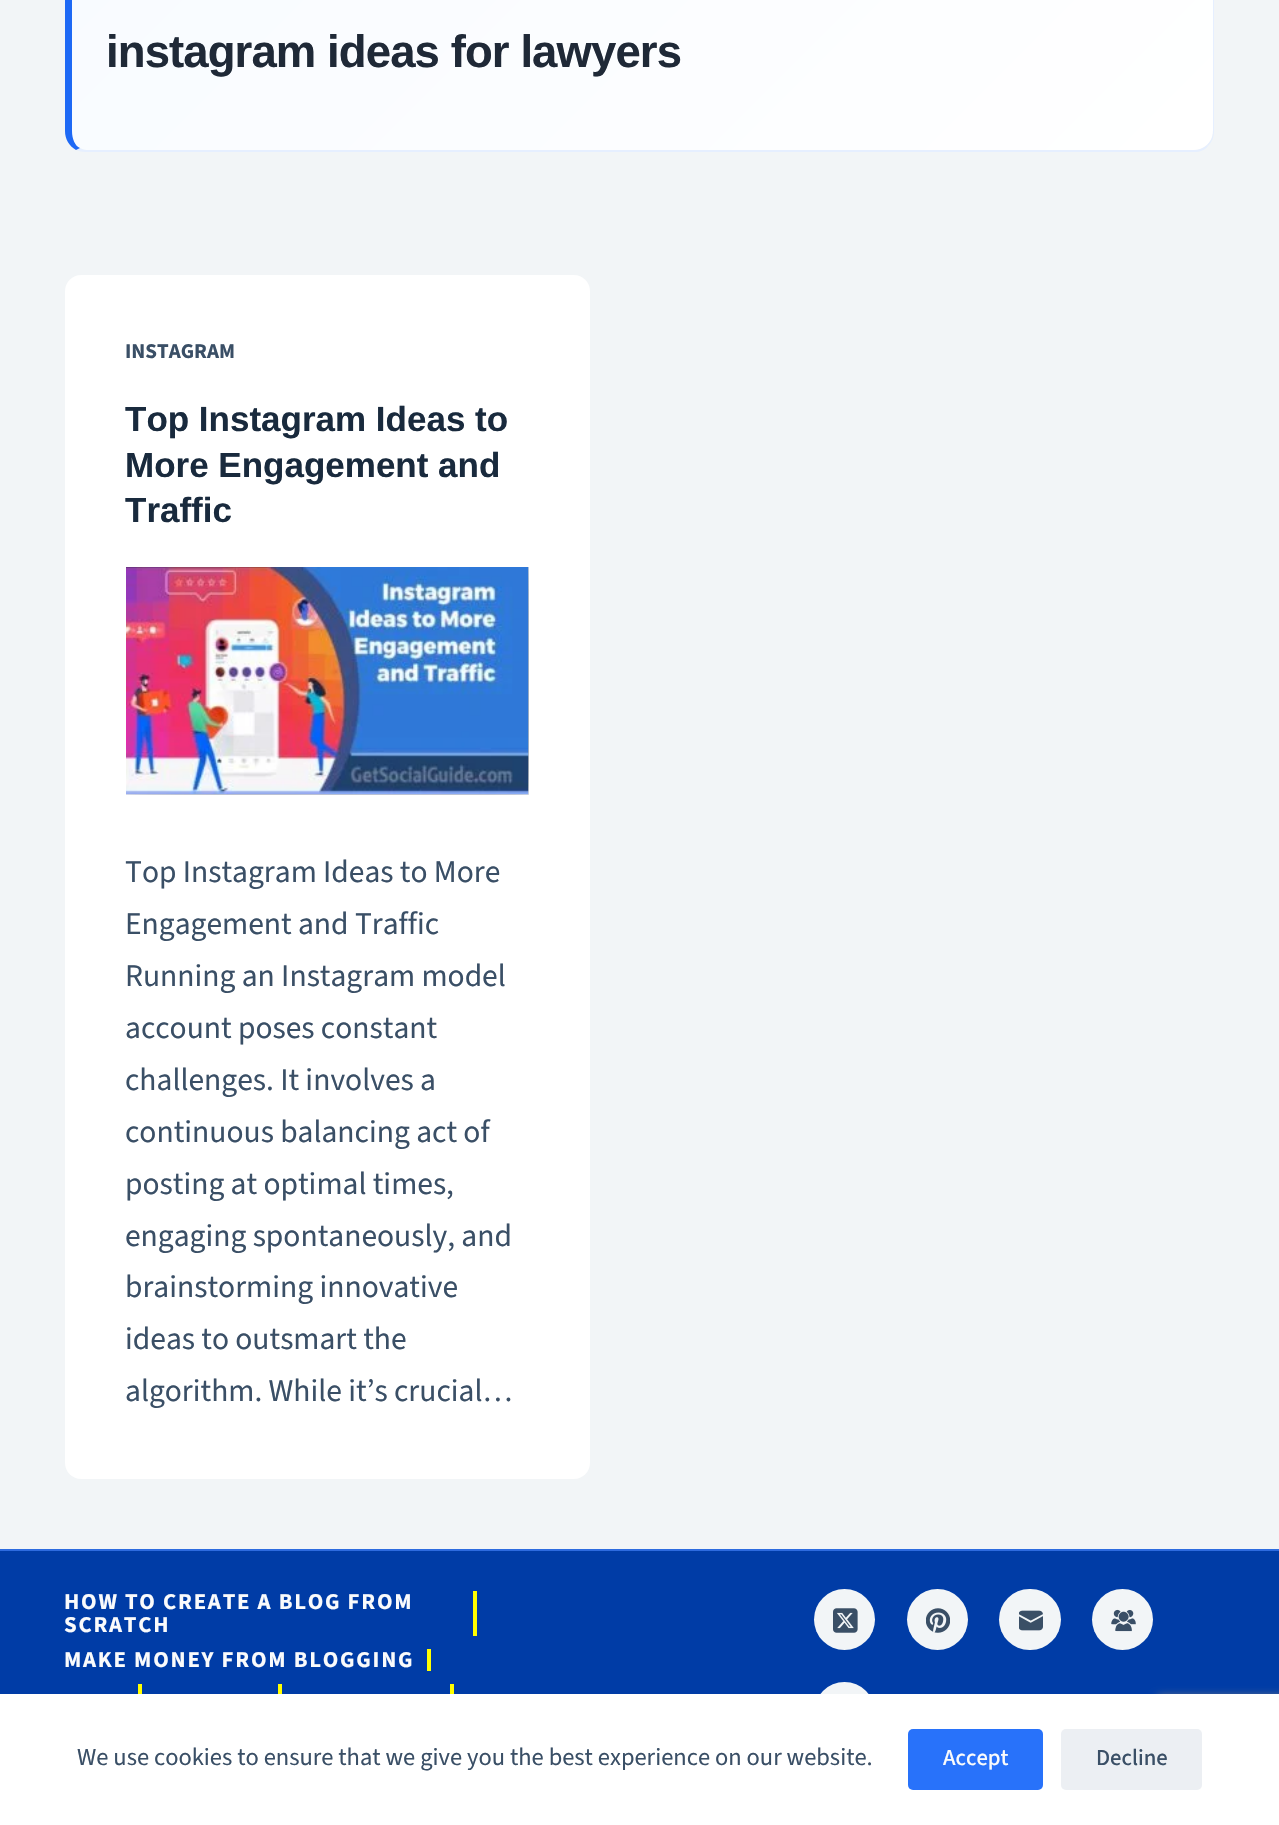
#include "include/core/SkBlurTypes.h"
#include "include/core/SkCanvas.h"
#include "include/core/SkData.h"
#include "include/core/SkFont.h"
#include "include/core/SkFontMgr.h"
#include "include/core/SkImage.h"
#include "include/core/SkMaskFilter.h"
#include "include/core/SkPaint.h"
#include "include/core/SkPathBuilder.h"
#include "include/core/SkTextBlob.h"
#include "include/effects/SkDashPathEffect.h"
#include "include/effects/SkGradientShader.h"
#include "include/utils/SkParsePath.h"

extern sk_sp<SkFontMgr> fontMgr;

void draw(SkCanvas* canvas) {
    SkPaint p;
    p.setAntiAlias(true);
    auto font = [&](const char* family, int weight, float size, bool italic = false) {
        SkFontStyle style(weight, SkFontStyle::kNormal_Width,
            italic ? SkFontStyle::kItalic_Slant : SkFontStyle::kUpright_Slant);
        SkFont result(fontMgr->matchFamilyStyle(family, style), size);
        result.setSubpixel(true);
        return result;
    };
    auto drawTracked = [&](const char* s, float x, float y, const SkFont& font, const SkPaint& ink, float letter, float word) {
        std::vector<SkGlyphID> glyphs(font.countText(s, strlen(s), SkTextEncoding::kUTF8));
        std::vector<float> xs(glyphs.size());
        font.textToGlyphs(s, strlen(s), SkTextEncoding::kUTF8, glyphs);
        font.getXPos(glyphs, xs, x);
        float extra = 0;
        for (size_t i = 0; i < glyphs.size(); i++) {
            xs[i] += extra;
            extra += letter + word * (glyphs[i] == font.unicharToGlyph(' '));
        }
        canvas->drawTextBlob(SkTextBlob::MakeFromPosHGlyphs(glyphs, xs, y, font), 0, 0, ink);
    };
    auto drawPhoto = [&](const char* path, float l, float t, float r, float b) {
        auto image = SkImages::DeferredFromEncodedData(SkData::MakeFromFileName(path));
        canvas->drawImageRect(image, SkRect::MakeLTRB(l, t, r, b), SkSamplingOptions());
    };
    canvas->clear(0xFFF2F5F7);
    {
        const SkColor colors[] = {0xFFF8FBFF, 0xFFFFFFFF};
        const float stops[] = {0, 1};
        const SkPoint ends[] = {{305, -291}, {980, 384}};
        p.setShader(SkGradientShader::MakeLinear(ends, colors, stops, 2, SkTileMode::kClamp));
        p.setAlpha(255);
    }
    canvas->drawPath(SkPathBuilder().moveTo(86, -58).lineTo(1194, -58).cubicTo(1204, -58, 1213, -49, 1213, -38).lineTo(1213, 131).cubicTo(1213, 142, 1204, 150, 1194, 150).lineTo(86, 150).cubicTo(78, 150, 72, 142, 72, 131).lineTo(72, -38).cubicTo(72, -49, 78, -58, 86, -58).close().detach(), p);
    p.setShader(nullptr);
    p.setColor(0xFFE6EFFF);
    canvas->drawPath(SkPathBuilder().moveTo(1208, -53).cubicTo(1212, -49, 1214, -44, 1214, -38).lineTo(1214, 131).cubicTo(1214, 137, 1212, 142, 1208, 146).lineTo(1207, 145).cubicTo(1211, 141, 1213, 137, 1213, 131).lineTo(1213, -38).cubicTo(1213, -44, 1211, -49, 1207, -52).close().detach(), p);
    canvas->drawPath(SkPathBuilder().moveTo(1208, 146).cubicTo(1205, 150, 1200, 152, 1194, 152).lineTo(86, 152).cubicTo(82, 152, 79, 151, 76, 150).lineTo(80, 148).cubicTo(82, 149, 84, 150, 86, 150).lineTo(1194, 150).cubicTo(1199, 150, 1204, 148, 1207, 145).close().detach(), p);
    p.setColor(0xFF1E69F5);
    canvas->drawPath(SkPathBuilder().moveTo(76, 150).cubicTo(69, 146, 65, 139, 65, 131).lineTo(65, -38).cubicTo(65, -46, 69, -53, 75, -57).lineTo(80, -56).cubicTo(75, -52, 72, -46, 72, -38).lineTo(72, 131).cubicTo(72, 139, 75, 146, 80, 148).close().detach(), p);
    auto font1 = font("Liberation Sans", 700, 45.5f);
    p.setColor(0xFF1F2937);
    drawTracked("instagram ideas for lawyers", 106, 67, font1, p, -0.9f, 0);
    p.setColor(0xFFFFFFFF);
    canvas->drawRoundRect(SkRect::MakeLTRB(65, 275, 590, 1479), 16, 16, p);
    auto font2 = font("Source Sans 3", 700, 21);
    p.setColor(0xFF3A4F66);
    canvas->drawString("INSTAGRAM", 125, 358, font2, p);
    auto font3 = font("Liberation Sans", 700, 35);
    p.setColor(0xFF192A3D);
    {
        const struct { const char* s; float x, y; } items[] = {
            {"Top Instagram Ideas to", 125, 431},
            {"More Engagement and", 125, 477},
            {"Traffic", 125, 522},
        };
        for (auto [s, x, y] : items) {
            canvas->drawString(s, x, y, font3, p);
        }
    }
    canvas->save();
    canvas->clipRect(SkRect::MakeLTRB(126, 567, 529, 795));
    p.setColor(0x1A000000);
    p.setMaskFilter(SkMaskFilter::MakeBlur(kNormal_SkBlurStyle, 12));
    canvas->drawRect(SkRect::MakeLTRB(137, 567, 539, 795), p);
    p.setMaskFilter(nullptr);
    p.setMaskFilter(SkMaskFilter::MakeBlur(kNormal_SkBlurStyle, 12));
    canvas->drawRect(SkRect::MakeLTRB(116, 567, 518, 795), p);
    p.setMaskFilter(nullptr);
    p.setMaskFilter(SkMaskFilter::MakeBlur(kNormal_SkBlurStyle, 12));
    canvas->drawRect(SkRect::MakeLTRB(126, 557, 529, 784), p);
    p.setMaskFilter(nullptr);
    p.setColor(0x29000000);
    p.setMaskFilter(SkMaskFilter::MakeBlur(kNormal_SkBlurStyle, 38.5f));
    canvas->drawRect(SkRect::MakeLTRB(152, 578, 555, 805), p);
    p.setMaskFilter(nullptr);
    canvas->restore();
    drawPhoto("media/1.png", 126, 567, 529, 795);
    auto font4 = font("Source Sans 3", 400, 31.5f);
    p.setColor(0xFF3A4F66);
    {
        const struct { const char* s; float x, y; } items[] = {
            {"Top Instagram Ideas to More", 125, 882},
            {"Engagement and Traffic", 125, 934},
            {"Running an Instagram model", 125, 986},
            {"account poses constant", 125, 1038},
            {"challenges. It involves a", 125, 1090},
            {"continuous balancing act of", 125, 1142},
            {"posting at optimal times,", 125, 1194},
            {"engaging spontaneously, and", 125, 1246},
            {"brainstorming innovative", 125, 1297},
            {"ideas to outsmart the", 125, 1349},
            {"algorithm. While it’s crucial…", 125, 1401},
        };
        for (auto [s, x, y] : items) {
            canvas->drawString(s, x, y, font4, p);
        }
    }
    {
        const struct { float l, t, r, b; SkColor color; } items[] = {
            {0, 1551, 1279, 1694, 0xFF003CA6},
            {0, 1549, 1279, 1551, 0xFF2D6BDF},
            {473, 1591, 477, 1636, 0xFFFFFF00},
        };
        for (auto [l, t, r, b, color] : items) {
            p.setColor(color);
            canvas->drawRect(SkRect::MakeLTRB(l, t, r, b), p);
        }
    }
    auto font5 = font("Source Sans 3", 700, 22.75f);
    p.setColor(0xFFFAFBFC);
    drawTracked("HOW TO CREATE A BLOG FROM", 64, 1609, font5, p, 1.75f, 0);
    drawTracked("SCRATCH", 64, 1632, font5, p, 1.75f, 0);
    p.setColor(0xFFFFFF00);
    canvas->drawRect(SkRect::MakeLTRB(427, 1649, 431, 1671), p);
    p.setColor(0xFFFAFBFC);
    drawTracked("MAKE MONEY FROM BLOGGING", 64, 1667, font5, p, 1.75f, 0);
    {
        const struct { float l, t, r, b; SkColor color; } items[] = {
            {138, 1684, 142, 1694, 0xFFFFFF00},
            {278, 1684, 282, 1694, 0xFFFFFF00},
            {450, 1684, 454, 1694, 0xFFFFFF00},
        };
        for (auto [l, t, r, b, color] : items) {
            p.setColor(color);
            canvas->drawRect(SkRect::MakeLTRB(l, t, r, b), p);
        }
    }
    p.setColor(0xFFF2F5F7);
    canvas->drawCircle(844.5f, 1619.5f, 30.5f, p);
    drawPhoto("media/2.png", 833, 1608, 858, 1633);
    canvas->drawCircle(937.5f, 1619.5f, 30.5f, p);
    drawPhoto("media/3.png", 926, 1608, 950, 1633);
    canvas->drawRoundRect(SkRect::MakeLTRB(999, 1589, 1061, 1650), 30.5f, 30.5f, p);
    drawPhoto("media/4.png", 1019, 1610, 1043, 1631);
    canvas->drawCircle(1122.5f, 1619.5f, 30.5f, p);
    drawPhoto("media/5.png", 1111, 1609, 1136, 1632);
    canvas->drawCircle(844.5f, 1712.5f, 30.5f, p);
    p.setColor(0xFF808080);
    p.setMaskFilter(SkMaskFilter::MakeBlur(kNormal_SkBlurStyle, 4.5f));
    canvas->drawRoundRect(SkRect::MakeLTRB(1157, 1696, 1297, 1801), 4, 4, p);
    p.setMaskFilter(nullptr);
    p.setColor(0xFFFFFFFF);
    canvas->drawRect(SkRect::MakeLTRB(0, 1694, 1279, 1825), p);
    auto font6 = font("Source Sans 3", 400, 24.5f);
    p.setColor(0xFF3A4F66);
    canvas->drawString("We use cookies to ensure that we give you the best experience on our website.", 77, 1765, font6, p);
    p.setColor(0xFF2872FA);
    canvas->drawRoundRect(SkRect::MakeLTRB(908, 1729, 1043, 1790), 5, 5, p);
    auto font7 = font("Source Sans 3", 500, 22.75f);
    p.setColor(0xFFFAFBFC);
    canvas->drawString("Accept", 943, 1765, font7, p);
    p.setColor(0xFFECEFF3);
    canvas->drawRoundRect(SkRect::MakeLTRB(1061, 1729, 1202, 1790), 5, 5, p);
    p.setColor(0xFF3A4F66);
    canvas->drawString("Decline", 1096, 1765, font7, p);
}
